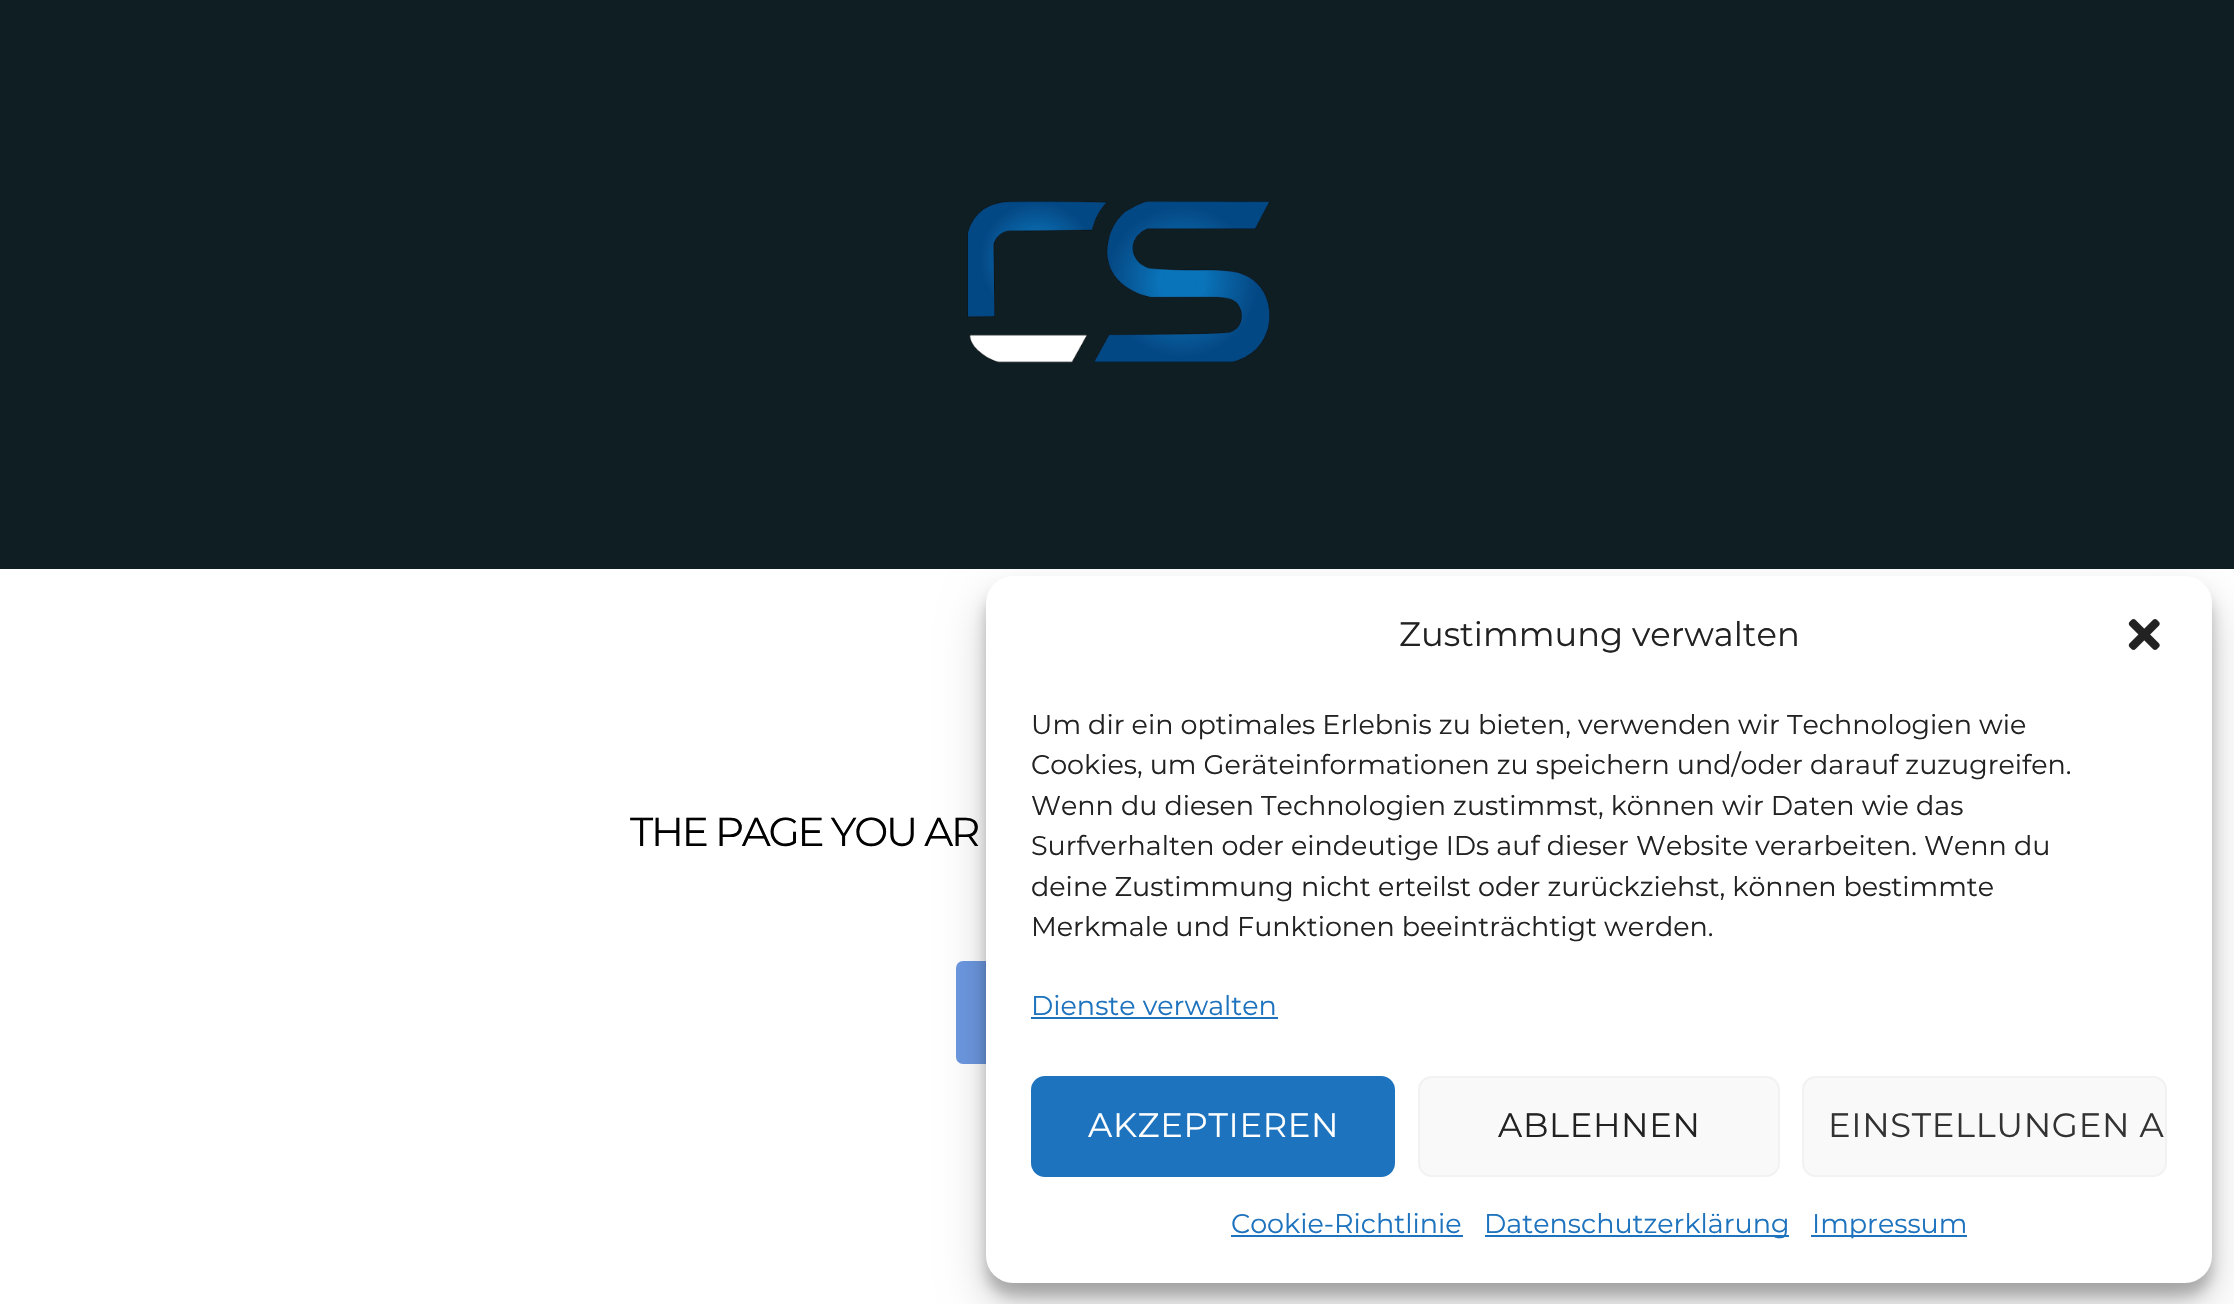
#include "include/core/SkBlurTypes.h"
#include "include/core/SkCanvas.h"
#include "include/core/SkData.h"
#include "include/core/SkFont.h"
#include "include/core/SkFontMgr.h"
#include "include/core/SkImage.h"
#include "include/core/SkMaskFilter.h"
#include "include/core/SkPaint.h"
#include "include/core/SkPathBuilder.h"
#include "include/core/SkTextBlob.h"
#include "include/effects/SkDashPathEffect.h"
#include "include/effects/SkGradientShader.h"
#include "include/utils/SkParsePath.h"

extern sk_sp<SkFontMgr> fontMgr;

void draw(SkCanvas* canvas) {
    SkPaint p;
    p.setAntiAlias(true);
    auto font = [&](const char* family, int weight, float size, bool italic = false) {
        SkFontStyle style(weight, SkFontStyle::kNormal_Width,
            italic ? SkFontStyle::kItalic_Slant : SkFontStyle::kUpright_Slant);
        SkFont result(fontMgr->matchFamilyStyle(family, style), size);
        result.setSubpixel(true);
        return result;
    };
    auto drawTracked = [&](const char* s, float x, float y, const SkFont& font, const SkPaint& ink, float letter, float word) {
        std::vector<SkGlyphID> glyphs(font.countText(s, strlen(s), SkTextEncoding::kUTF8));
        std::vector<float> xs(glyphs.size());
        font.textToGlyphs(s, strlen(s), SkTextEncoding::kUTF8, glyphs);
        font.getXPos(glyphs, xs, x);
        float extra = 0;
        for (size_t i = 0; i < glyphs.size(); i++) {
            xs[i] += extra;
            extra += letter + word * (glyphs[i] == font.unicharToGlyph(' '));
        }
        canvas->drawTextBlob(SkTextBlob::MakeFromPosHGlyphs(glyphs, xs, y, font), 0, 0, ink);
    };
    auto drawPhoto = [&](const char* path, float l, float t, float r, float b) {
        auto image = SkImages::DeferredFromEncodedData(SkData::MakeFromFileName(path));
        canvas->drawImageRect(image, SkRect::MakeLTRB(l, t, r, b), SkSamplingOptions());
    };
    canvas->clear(0xFFFFFFFF);
    p.setColor(0xFF0F1E23);
    canvas->drawRect(SkRect::MakeLTRB(0, 0, 2234, 569), p);
    drawPhoto("media/1.png", 967, 201, 1270, 363);
    auto font1 = font("Montserrat", 100, 40.5f);
    p.setColor(0xFF000000);
    drawTracked("THE PAGE YOU AR", 630, 846, font1, p, -2.25f, 0);
    p.setColor(0xFF6C98E1);
    canvas->drawRoundRect(SkRect::MakeLTRB(956, 961, 1278, 1064), 7, 7, p);
    p.setColor(0x3B000000);
    p.setMaskFilter(SkMaskFilter::MakeBlur(kNormal_SkBlurStyle, 7));
    canvas->drawRoundRect(SkRect::MakeLTRB(986, 590, 2212, 1296), 27, 27, p);
    p.setMaskFilter(nullptr);
    p.setColor(0x30000000);
    p.setMaskFilter(SkMaskFilter::MakeBlur(kNormal_SkBlurStyle, 22.5f));
    canvas->drawRoundRect(SkRect::MakeLTRB(986, 599, 2212, 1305), 27, 27, p);
    p.setMaskFilter(nullptr);
    p.setColor(0xFFFFFFFF);
    canvas->drawRoundRect(SkRect::MakeLTRB(986, 576, 2212, 1283), 27, 27, p);
    auto font2 = font("Montserrat", 100, 33.75f);
    p.setColor(0xFF222222);
    canvas->drawString("Zustimmung verwalten", 1399, 646, font2, p);
    drawPhoto("media/2.png", 2128, 619, 2160, 650);
    auto font3 = font("Montserrat", 100, 27);
    {
        const struct { const char* s; float x, y; } items[] = {
            {"Um dir ein optimales Erlebnis zu bieten, verwenden wir Technologien wie", 1031, 734},
            {"Cookies, um Geräteinformationen zu speichern und/oder darauf zuzugreifen.", 1031, 774},
            {"Wenn du diesen Technologien zustimmst, können wir Daten wie das", 1031, 815},
            {"Surfverhalten oder eindeutige IDs auf dieser Website verarbeiten. Wenn du", 1031, 855},
            {"deine Zustimmung nicht erteilst oder zurückziehst, können bestimmte", 1031, 896},
            {"Merkmale und Funktionen beeinträchtigt werden.", 1031, 936},
        };
        for (auto [s, x, y] : items) {
            canvas->drawString(s, x, y, font3, p);
        }
    }
    p.setColor(0xFF1E73BE);
    canvas->drawString("Dienste verwalten", 1031, 1015, font3, p);
    canvas->drawRect(SkRect::MakeLTRB(1031, 1017, 1278, 1019), p);
    canvas->drawRoundRect(SkRect::MakeLTRB(1032, 1077, 1394, 1176), 13, 13, p);
    p.setStyle(SkPaint::kStroke_Style);
    p.setStrokeWidth(2);
    canvas->drawRoundRect(SkRect::MakeLTRB(1032, 1077, 1394, 1176), 13, 13, p);
    p.setStyle(SkPaint::kFill_Style);
    p.setColor(0xFFFFFFFF);
    drawTracked("AKZEPTIEREN", 1088, 1137, font2, p, 0.7f, 0);
    p.setColor(0xFFF9F9F9);
    canvas->drawRoundRect(SkRect::MakeLTRB(1419, 1077, 1779, 1176), 13, 13, p);
    p.setStyle(SkPaint::kStroke_Style);
    p.setColor(0xFFF2F2F2);
    canvas->drawRoundRect(SkRect::MakeLTRB(1419, 1077, 1779, 1176), 13, 13, p);
    p.setStyle(SkPaint::kFill_Style);
    p.setColor(0xFF222222);
    drawTracked("ABLEHNEN", 1498, 1137, font2, p, 0.7f, 0);
    p.setColor(0xFFF9F9F9);
    canvas->drawRoundRect(SkRect::MakeLTRB(1803, 1077, 2166, 1176), 13, 13, p);
    p.setStyle(SkPaint::kStroke_Style);
    p.setColor(0xFFF2F2F2);
    canvas->drawRoundRect(SkRect::MakeLTRB(1803, 1077, 2166, 1176), 13, 13, p);
    p.setStyle(SkPaint::kFill_Style);
    p.setColor(0xFF333333);
    drawTracked("EINSTELLUNGEN A", 1828, 1137, font2, p, 0.7f, 0);
    p.setColor(0xFF1E73BE);
    canvas->drawString("Cookie-Richtlinie", 1231, 1233, font3, p);
    canvas->drawRect(SkRect::MakeLTRB(1231, 1235, 1463, 1237), p);
    canvas->drawRect(SkRect::MakeLTRB(1485, 1235, 1789, 1237), p);
    canvas->drawString("Datenschutzerklärung", 1484, 1233, font3, p);
    canvas->drawRect(SkRect::MakeLTRB(1811, 1235, 1967, 1237), p);
    canvas->drawString("Impressum", 1812, 1233, font3, p);
}
